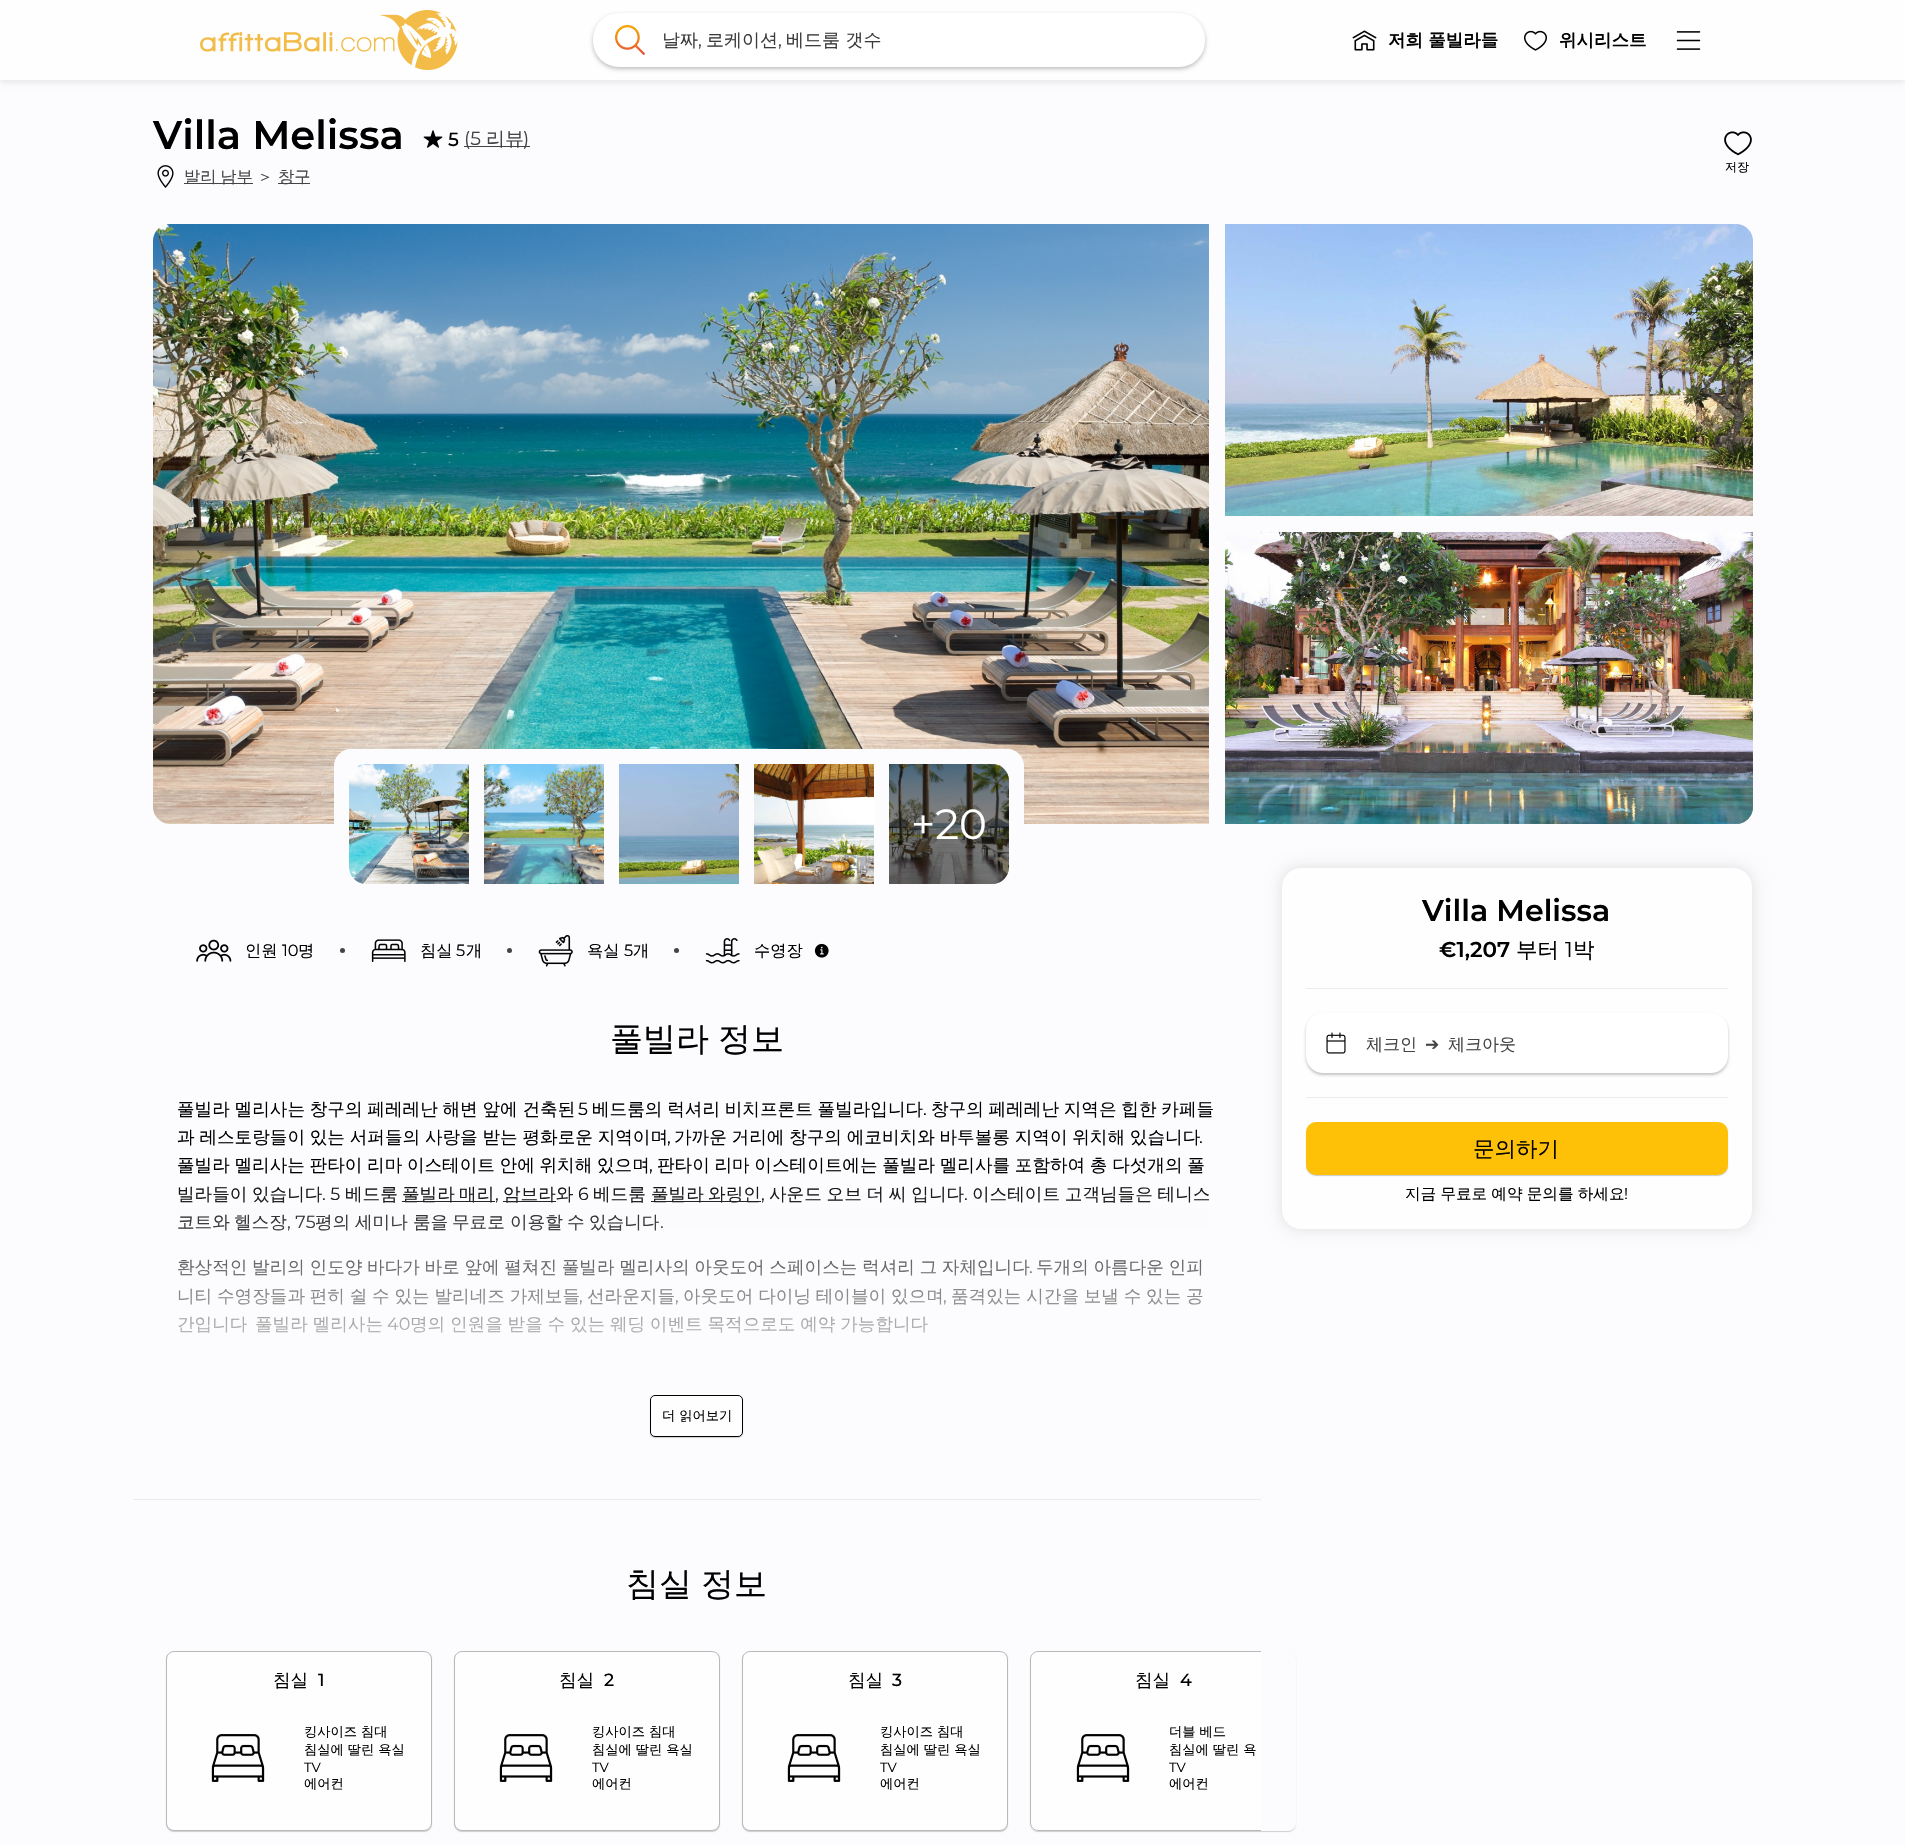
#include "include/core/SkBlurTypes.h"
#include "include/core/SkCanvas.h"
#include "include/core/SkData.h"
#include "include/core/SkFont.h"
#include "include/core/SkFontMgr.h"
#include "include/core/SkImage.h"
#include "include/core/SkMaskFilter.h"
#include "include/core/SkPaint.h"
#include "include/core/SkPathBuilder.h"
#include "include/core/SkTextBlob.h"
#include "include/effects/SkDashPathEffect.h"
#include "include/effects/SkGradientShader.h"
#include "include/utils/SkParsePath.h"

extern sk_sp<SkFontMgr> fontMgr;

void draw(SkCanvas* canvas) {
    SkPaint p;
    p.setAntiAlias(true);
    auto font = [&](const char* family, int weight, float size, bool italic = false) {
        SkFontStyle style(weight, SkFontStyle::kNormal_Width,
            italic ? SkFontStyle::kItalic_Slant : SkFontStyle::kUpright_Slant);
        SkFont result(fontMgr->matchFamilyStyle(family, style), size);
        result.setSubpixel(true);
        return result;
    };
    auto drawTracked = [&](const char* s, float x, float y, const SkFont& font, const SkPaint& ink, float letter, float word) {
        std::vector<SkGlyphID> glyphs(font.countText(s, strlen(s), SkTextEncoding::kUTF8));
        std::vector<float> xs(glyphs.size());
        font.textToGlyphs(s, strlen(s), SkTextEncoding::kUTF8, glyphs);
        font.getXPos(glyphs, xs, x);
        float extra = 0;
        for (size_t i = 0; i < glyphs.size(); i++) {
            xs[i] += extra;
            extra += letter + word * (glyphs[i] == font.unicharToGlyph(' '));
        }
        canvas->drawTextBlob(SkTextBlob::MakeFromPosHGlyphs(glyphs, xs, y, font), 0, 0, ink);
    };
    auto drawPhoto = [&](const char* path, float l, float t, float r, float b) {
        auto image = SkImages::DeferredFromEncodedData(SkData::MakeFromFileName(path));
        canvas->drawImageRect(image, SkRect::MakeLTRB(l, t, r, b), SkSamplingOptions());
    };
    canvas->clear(0xFFFCFCFE);
    p.setColor(0x12000000);
    p.setMaskFilter(SkMaskFilter::MakeBlur(kNormal_SkBlurStyle, 2.5f));
    canvas->drawRect(SkRect::MakeLTRB(0, 3, 1905, 83), p);
    p.setMaskFilter(nullptr);
    p.setColor(0xFFFEFEFF);
    canvas->drawRect(SkRect::MakeLTRB(0, 0, 1905, 80), p);
    drawPhoto("media/1.png", 200, 10, 458, 70);
    p.setColor(0x40000000);
    p.setMaskFilter(SkMaskFilter::MakeBlur(kNormal_SkBlurStyle, 2));
    canvas->drawRoundRect(SkRect::MakeLTRB(593, 15, 1205, 69), 26, 26, p);
    p.setMaskFilter(nullptr);
    p.setColor(0xFFFFFFFF);
    canvas->drawRoundRect(SkRect::MakeLTRB(593, 13, 1205, 67), 26, 26, p);
    drawPhoto("media/2.png", 615, 25, 645, 55);
    auto font1 = font("WenQuanYi Zen Hei", 500, 18);
    p.setColor(0xFF3C3C3C);
    canvas->drawString("날짜", 662, 46, font1, p);
    auto font2 = font("Montserrat", 400, 18);
    canvas->drawString(",", 698, 46, font2, p);
    canvas->drawString("로케이션", 706, 46, font1, p);
    canvas->drawString(",", 778, 46, font2, p);
    canvas->drawString("베드룸 갯수", 786, 46, font1, p);
    drawPhoto("media/3.png", 1352, 30, 1377, 51);
    auto font3 = font("WenQuanYi Zen Hei", 700, 17.5f);
    p.setColor(0xFF000000);
    canvas->drawString("저희 풀빌라들", 1388, 46, font3, p);
    drawPhoto("media/4.png", 1524, 30, 1547, 51);
    canvas->drawString("위시리스트", 1559, 46, font3, p);
    drawPhoto("media/5.png", 1676, 31, 1701, 50);
    auto font4 = font("Montserrat", 600, 40);
    canvas->drawString("Villa Melissa", 153, 149, font4, p);
    drawPhoto("media/6.png", 423, 130, 443, 148);
    auto font5 = font("Montserrat", 500, 19);
    canvas->drawString("5", 448, 146, font5, p);
    p.setColor(0xFF444444);
    canvas->drawRect(SkRect::MakeLTRB(464, 146, 530, 147), p);
    auto font6 = font("Montserrat", 400, 19);
    canvas->drawString("(5", 464, 145, font6, p);
    auto font7 = font("WenQuanYi Zen Hei", 500, 19);
    canvas->drawString("리뷰", 486, 145, font7, p);
    canvas->drawString(")", 523, 145, font6, p);
    drawPhoto("media/7.png", 157, 165, 174, 188);
    canvas->drawRect(SkRect::MakeLTRB(184, 183, 253, 184), p);
    auto font8 = font("WenQuanYi Zen Hei", 500, 16.25f);
    drawTracked("발리 남부", 184, 182, font8, p, 0, -1);
    canvas->drawString("＞", 257, 182, font8, p);
    canvas->drawRect(SkRect::MakeLTRB(278, 183, 310, 184), p);
    canvas->drawString("창구", 278, 182, font8, p);
    drawPhoto("media/8.png", 1724, 131, 1752, 156);
    auto font9 = font("WenQuanYi Zen Hei", 500, 12);
    p.setColor(0xFF000000);
    canvas->drawString("저장", 1725, 171, font9, p);
    drawPhoto("media/9.png", 153, 224, 1209, 824);
    drawPhoto("media/10.png", 1225, 224, 1753, 516);
    p.setColor(0xFF8A8B80);
    canvas->drawPath(SkPathBuilder().moveTo(1225, 532).lineTo(1753, 532).lineTo(1753, 807).cubicTo(1753, 816.5f, 1745.5f, 824, 1736, 824).lineTo(1225, 824).close().detach(), p);
    drawPhoto("media/11.png", 1225, 532, 1753, 824);
    p.setColor(0xFFFCFCFE);
    canvas->drawRoundRect(SkRect::MakeLTRB(334, 749, 1024, 899), 17, 17, p);
    drawPhoto("media/12.png", 349, 764, 469, 884);
    drawPhoto("media/13.png", 484, 764, 604, 884);
    drawPhoto("media/14.png", 619, 764, 739, 884);
    drawPhoto("media/15.png", 754, 764, 874, 884);
    p.setColor(0xFFA8ABA3);
    canvas->drawPath(SkPathBuilder().moveTo(889, 764).lineTo(992, 764).cubicTo(1001.5f, 764, 1009, 771.5f, 1009, 781).lineTo(1009, 867).cubicTo(1009, 876.5f, 1001.5f, 884, 992, 884).lineTo(889, 884).close().detach(), p);
    drawPhoto("media/16.png", 889, 764, 1009, 884);
    p.setColor(0x80000000);
    canvas->drawPath(SkPathBuilder().moveTo(889, 764).lineTo(992, 764).cubicTo(1001.5f, 764, 1009, 771.5f, 1009, 781).lineTo(1009, 867).cubicTo(1009, 876.5f, 1001.5f, 884, 992, 884).lineTo(889, 884).close().detach(), p);
    auto font10 = font("Montserrat", 400, 42);
    p.setColor(0xFFFFFFFF);
    canvas->drawString("+20", 911, 839, font10, p);
    drawPhoto("media/17.png", 196, 939, 232, 962);
    p.setColor(0xFF000000);
    canvas->drawString("인원", 245, 956, font8, p);
    auto font11 = font("Montserrat", 400, 16.25f);
    canvas->drawString("10", 282, 956, font11, p);
    canvas->drawString("명", 298, 956, font8, p);
    p.setColor(0xFF444444);
    canvas->drawCircle(342.5f, 950.5f, 2.5f, p);
    drawPhoto("media/18.png", 371, 939, 406, 962);
    p.setColor(0xFF000000);
    canvas->drawString("침실", 420, 956, font8, p);
    canvas->drawString("5", 456, 956, font11, p);
    canvas->drawString("개", 466, 956, font8, p);
    p.setColor(0xFF444444);
    canvas->drawCircle(509.5f, 950.5f, 2.5f, p);
    drawPhoto("media/19.png", 538, 935, 573, 967);
    p.setColor(0xFF000000);
    canvas->drawString("욕실", 587, 956, font8, p);
    canvas->drawString("5", 624, 956, font11, p);
    canvas->drawString("개", 633, 956, font8, p);
    p.setColor(0xFF444444);
    canvas->drawCircle(676.5f, 950.5f, 2.5f, p);
    drawPhoto("media/20.png", 705, 938, 740, 964);
    p.setColor(0xFF000000);
    canvas->drawString("수영장", 754, 956, font8, p);
    drawPhoto("media/21.png", 814, 943, 829, 958);
    auto font12 = font("WenQuanYi Zen Hei", 500, 33);
    drawTracked("풀빌라 정보", 610, 1050, font12, p, 0, -1);
    auto font13 = font("WenQuanYi Zen Hei", 500, 17.6f);
    drawTracked("풀빌라 멜리사는 창구의 페레레난 해변 앞에 건축된", 177, 1115, font13, p, 0, -0.5f);
    auto font14 = font("Montserrat", 400, 17.6f);
    canvas->drawString("5", 578, 1115, font14, p);
    drawTracked("베드룸의 럭셔리 비치프론트 풀빌라입니다", 592, 1115, font13, p, 0, -0.5f);
    canvas->drawString(".", 923, 1115, font14, p);
    drawTracked("창구의 페레레난 지역은 힙한 카페들", 931, 1115, font13, p, 0, -0.5f);
    drawTracked("과 레스토랑들이 있는 서퍼들의 사랑을 받는 평화로운 지역이며", 177, 1143, font13, p, 0, -0.5f);
    canvas->drawString(",", 667, 1143, font14, p);
    drawTracked("가까운 거리에 창구의 에코비치와 바투볼롱 지역이 위치해 있습니다", 674, 1143, font13, p, 0, -0.5f);
    canvas->drawString(".", 1199, 1143, font14, p);
    drawTracked("풀빌라 멜리사는 판타이 리마 이스테이트 안에 위치해 있으며", 177, 1171, font13, p, 0, -0.6f);
    canvas->drawString(",", 649, 1171, font14, p);
    drawTracked("판타이 리마 이스테이트에는 풀빌라 멜리사를 포함하여 총 다섯개의 풀", 657, 1171, font13, p, 0, -0.6f);
    canvas->drawString("빌라들이", 177, 1200, font13, p);
    canvas->drawString("있습니다", 252, 1200, font13, p);
    canvas->drawString(". 5", 322, 1200, font14, p);
    canvas->drawString("베드룸", 345, 1200, font13, p);
    canvas->drawRect(SkRect::MakeLTRB(402, 1201, 495, 1202), p);
    drawTracked("풀빌라 매리", 402, 1200, font13, p, 0, -1);
    canvas->drawString(",", 495, 1200, font14, p);
    canvas->drawRect(SkRect::MakeLTRB(503, 1201, 556, 1202), p);
    canvas->drawString("암브라와", 503, 1200, font13, p);
    canvas->drawString("6", 578, 1200, font14, p);
    canvas->drawString("베드룸", 593, 1200, font13, p);
    canvas->drawRect(SkRect::MakeLTRB(651, 1201, 761, 1202), p);
    drawTracked("풀빌라 와링인", 651, 1200, font13, p, 0, -1);
    canvas->drawString(",", 761, 1200, font14, p);
    drawTracked("사운드 오브 더 씨 입니다", 769, 1200, font13, p, 0, -0.5f);
    canvas->drawString(".", 964, 1200, font14, p);
    drawTracked("이스테이트 고객님들은 테니스", 972, 1200, font13, p, 0, -0.5f);
    canvas->drawString("코트와", 177, 1228, font13, p);
    canvas->drawString("헬스장", 234, 1228, font13, p);
    canvas->drawString(", 75", 287, 1228, font14, p);
    {
        const struct { const char* s; float x, y; } items[] = {
            {"평의", 315, 1228},
            {"세미나", 355, 1228},
            {"룸을", 413, 1228},
            {"무료로", 452, 1228},
            {"이용할", 510, 1228},
            {"수", 567, 1228},
            {"있습니다", 589, 1228},
        };
        for (auto [s, x, y] : items) {
            canvas->drawString(s, x, y, font13, p);
        }
    }
    canvas->drawString(".", 660, 1228, font14, p);
    drawTracked("환상적인 발리의 인도양 바다가 바로 앞에 펼쳐진 풀빌라 멜리사의 아웃도어 스페이스는 럭셔리 그 자체입니다", 177, 1273, font13, p, 0, -0.6f);
    canvas->drawString(".", 1029, 1273, font14, p);
    drawTracked("두개의 아름다운 인피", 1036, 1273, font13, p, 0, -0.6f);
    drawTracked("니티 수영장들과 편히 쉴 수 있는 발리네즈 가제보들", 177, 1302, font13, p, 0, -0.5f);
    canvas->drawString(",", 579, 1302, font14, p);
    canvas->drawString("선라운지들", 587, 1302, font13, p);
    canvas->drawString(",", 675, 1302, font14, p);
    drawTracked("아웃도어 다이닝 테이블이 있으며", 683, 1302, font13, p, 0, -0.5f);
    canvas->drawString(",", 943, 1302, font14, p);
    drawTracked("품격있는 시간을 보낼 수 있는 공", 951, 1302, font13, p, 0, -0.5f);
    canvas->drawString("간입니다", 177, 1330, font13, p);
    drawTracked("풀빌라 멜리사는", 255, 1330, font13, p, 0, -0.5f);
    canvas->drawString("40", 387, 1330, font14, p);
    drawTracked("명의 인원을 받을 수 있는 웨딩 이벤트 목적으로도 예약 가능합니다", 410, 1330, font13, p, 0, -0.5f);
    {
        const SkColor colors[] = {0x00FCFCFE, 0xFFFCFCFE};
        const float stops[] = {0.25f, 1};
        const SkPoint ends[] = {{697, 1095}, {697, 1395}};
        p.setShader(SkGradientShader::MakeLinear(ends, colors, stops, 2, SkTileMode::kClamp));
        p.setAlpha(255);
    }
    canvas->drawRect(SkRect::MakeLTRB(177, 1186, 1209, 1333), p);
    p.setShader(nullptr);
    p.setColor(0x2E000000);
    p.setMaskFilter(SkMaskFilter::MakeBlur(kNormal_SkBlurStyle, 0.5f));
    canvas->drawRoundRect(SkRect::MakeLTRB(650, 1396, 743, 1438), 5, 5, p);
    p.setMaskFilter(nullptr);
    p.setColor(0xFFFEFEFF);
    canvas->drawRoundRect(SkRect::MakeLTRB(650.5f, 1395.5f, 742.5f, 1436.5f), 4.5f, 4.5f, p);
    p.setStyle(SkPaint::kStroke_Style);
    p.setStrokeWidth(1);
    p.setColor(0xFF000000);
    canvas->drawRoundRect(SkRect::MakeLTRB(650.5f, 1395.5f, 742.5f, 1436.5f), 4.5f, 4.5f, p);
    auto font15 = font("WenQuanYi Zen Hei", 500, 13.25f);
    p.setStyle(SkPaint::kFill_Style);
    canvas->drawString("더 읽어보기", 662, 1420, font15, p);
    p.setColor(0xFFEBEBEB);
    canvas->drawRect(SkRect::MakeLTRB(133, 1499, 1261, 1500), p);
    p.setColor(0xFF000000);
    drawTracked("침실 정보", 626, 1595, font12, p, 0, -1);
    p.setColor(0x2E000000);
    p.setMaskFilter(SkMaskFilter::MakeBlur(kNormal_SkBlurStyle, 0.5f));
    canvas->drawRoundRect(SkRect::MakeLTRB(166, 1652, 432, 1832), 8, 8, p);
    p.setMaskFilter(nullptr);
    p.setColor(0xFFFEFEFF);
    canvas->drawRoundRect(SkRect::MakeLTRB(166.5f, 1651.5f, 431.5f, 1830.5f), 7.5f, 7.5f, p);
    p.setStyle(SkPaint::kStroke_Style);
    p.setColor(0xFFB9B9B9);
    canvas->drawRoundRect(SkRect::MakeLTRB(166.5f, 1651.5f, 431.5f, 1830.5f), 7.5f, 7.5f, p);
    p.setStyle(SkPaint::kFill_Style);
    p.setColor(0xFF000000);
    canvas->drawString("침실", 273, 1686, font13, p);
    auto font16 = font("Montserrat", 500, 17.6f);
    canvas->drawString("1", 318, 1686, font16, p);
    drawPhoto("media/22.png", 211, 1734, 265, 1782);
    canvas->drawString("킹사이즈 침대", 304, 1736, font15, p);
    canvas->drawString("침실에 딸린 욕실", 304, 1754, font15, p);
    auto font17 = font("Montserrat", 400, 13.25f);
    canvas->drawString("TV", 304, 1772, font17, p);
    canvas->drawString("에어컨", 304, 1788, font15, p);
    p.setColor(0x2E000000);
    p.setMaskFilter(SkMaskFilter::MakeBlur(kNormal_SkBlurStyle, 0.5f));
    canvas->drawRoundRect(SkRect::MakeLTRB(454, 1652, 720, 1832), 8, 8, p);
    p.setMaskFilter(nullptr);
    p.setColor(0xFFFEFEFF);
    canvas->drawRoundRect(SkRect::MakeLTRB(454.5f, 1651.5f, 719.5f, 1830.5f), 7.5f, 7.5f, p);
    p.setStyle(SkPaint::kStroke_Style);
    p.setColor(0xFFB9B9B9);
    canvas->drawRoundRect(SkRect::MakeLTRB(454.5f, 1651.5f, 719.5f, 1830.5f), 7.5f, 7.5f, p);
    p.setStyle(SkPaint::kFill_Style);
    p.setColor(0xFF000000);
    canvas->drawString("침실", 559, 1686, font13, p);
    canvas->drawString("2", 604, 1686, font16, p);
    drawPhoto("media/22.png", 499, 1734, 553, 1782);
    canvas->drawString("킹사이즈 침대", 592, 1736, font15, p);
    canvas->drawString("침실에 딸린 욕실", 592, 1754, font15, p);
    canvas->drawString("TV", 592, 1772, font17, p);
    canvas->drawString("에어컨", 592, 1788, font15, p);
    p.setColor(0x2E000000);
    p.setMaskFilter(SkMaskFilter::MakeBlur(kNormal_SkBlurStyle, 0.5f));
    canvas->drawRoundRect(SkRect::MakeLTRB(742, 1652, 1008, 1832), 8, 8, p);
    p.setMaskFilter(nullptr);
    p.setColor(0xFFFEFEFF);
    canvas->drawRoundRect(SkRect::MakeLTRB(742.5f, 1651.5f, 1007.5f, 1830.5f), 7.5f, 7.5f, p);
    p.setStyle(SkPaint::kStroke_Style);
    p.setColor(0xFFB9B9B9);
    canvas->drawRoundRect(SkRect::MakeLTRB(742.5f, 1651.5f, 1007.5f, 1830.5f), 7.5f, 7.5f, p);
    p.setStyle(SkPaint::kFill_Style);
    p.setColor(0xFF000000);
    canvas->drawString("침실", 848, 1686, font13, p);
    canvas->drawString("3", 892, 1686, font16, p);
    drawPhoto("media/22.png", 787, 1734, 841, 1782);
    canvas->drawString("킹사이즈 침대", 880, 1736, font15, p);
    canvas->drawString("침실에 딸린 욕실", 880, 1754, font15, p);
    canvas->drawString("TV", 880, 1772, font17, p);
    canvas->drawString("에어컨", 880, 1788, font15, p);
    canvas->save();
    canvas->clipPath(SkPathBuilder(SkPathFillType::kEvenOdd).moveTo(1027, 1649).lineTo(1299, 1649).lineTo(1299, 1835).lineTo(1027, 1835).close().moveTo(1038, 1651).lineTo(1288, 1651).cubicTo(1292.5f, 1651, 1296, 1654.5f, 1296, 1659).lineTo(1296, 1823).cubicTo(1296, 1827.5f, 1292.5f, 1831, 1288, 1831).lineTo(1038, 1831).cubicTo(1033.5f, 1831, 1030, 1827.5f, 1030, 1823).lineTo(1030, 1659).cubicTo(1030, 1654.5f, 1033.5f, 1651, 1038, 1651).close().detach(), true);
    p.setColor(0x2E000000);
    p.setMaskFilter(SkMaskFilter::MakeBlur(kNormal_SkBlurStyle, 0.5f));
    canvas->drawRoundRect(SkRect::MakeLTRB(1030, 1652, 1296, 1832), 8, 8, p);
    p.setMaskFilter(nullptr);
    canvas->restore();
    p.setColor(0xFFFEFEFF);
    canvas->drawPath(SkPathBuilder().moveTo(1038, 1651).lineTo(1261, 1651).lineTo(1261, 1831).lineTo(1038, 1831).cubicTo(1033.5f, 1831, 1030, 1827.5f, 1030, 1823).lineTo(1030, 1659).cubicTo(1030, 1654.5f, 1033.5f, 1651, 1038, 1651).close().detach(), p);
    canvas->save();
    canvas->clipRect(SkRect::MakeLTRB(133, 1640, 1261, 1842));
    p.setStyle(SkPaint::kStroke_Style);
    p.setColor(0xFFB9B9B9);
    canvas->drawRoundRect(SkRect::MakeLTRB(1030.5f, 1651.5f, 1295.5f, 1830.5f), 7.5f, 7.5f, p);
    canvas->restore();
    p.setStyle(SkPaint::kFill_Style);
    p.setColor(0xFF000000);
    canvas->drawString("침실", 1135, 1686, font13, p);
    canvas->drawString("4", 1180, 1686, font16, p);
    drawPhoto("media/22.png", 1076, 1734, 1130, 1782);
    canvas->drawString("더블 베드", 1169, 1736, font15, p);
    canvas->drawString("침실에 딸린 욕", 1169, 1754, font15, p);
    canvas->drawString("TV", 1169, 1772, font17, p);
    canvas->drawString("에어컨", 1169, 1788, font15, p);
    p.setColor(0x1A000000);
    p.setMaskFilter(SkMaskFilter::MakeBlur(kNormal_SkBlurStyle, 7.5f));
    canvas->drawRoundRect(SkRect::MakeLTRB(1281, 867, 1753, 1230), 20, 20, p);
    p.setMaskFilter(nullptr);
    p.setColor(0xFFFEFEFF);
    canvas->drawRoundRect(SkRect::MakeLTRB(1281.5f, 867.5f, 1752.5f, 1229.5f), 19.5f, 19.5f, p);
    p.setStyle(SkPaint::kStroke_Style);
    p.setColor(0xFFEEEEEE);
    canvas->drawRoundRect(SkRect::MakeLTRB(1281.5f, 867.5f, 1752.5f, 1229.5f), 19.5f, 19.5f, p);
    auto font18 = font("Montserrat", 600, 30);
    p.setStyle(SkPaint::kFill_Style);
    p.setColor(0xFF000000);
    canvas->drawString("Villa Melissa", 1422, 921, font18, p);
    auto font19 = font("Montserrat", 600, 21.5f);
    canvas->drawString("€1,207", 1439, 957, font19, p);
    auto font20 = font("WenQuanYi Zen Hei", 500, 21.5f);
    canvas->drawString("부터", 1516, 957, font20, p);
    auto font21 = font("Montserrat", 400, 21.5f);
    canvas->drawString("1", 1565, 957, font21, p);
    canvas->drawString("박", 1573, 957, font20, p);
    p.setColor(0xFFEBEBEB);
    canvas->drawRect(SkRect::MakeLTRB(1306, 988, 1728, 989), p);
    p.setColor(0x3B000000);
    p.setMaskFilter(SkMaskFilter::MakeBlur(kNormal_SkBlurStyle, 1.5f));
    canvas->drawRoundRect(SkRect::MakeLTRB(1306, 1015, 1728, 1075), 17, 17, p);
    p.setMaskFilter(nullptr);
    p.setColor(0xFFFFFFFF);
    canvas->drawRoundRect(SkRect::MakeLTRB(1306, 1013, 1728, 1073), 17, 17, p);
    drawPhoto("media/23.png", 1326, 1032, 1346, 1054);
    auto font22 = font("WenQuanYi Zen Hei", 500, 17);
    p.setColor(0xFF444444);
    canvas->drawString("체크인", 1366, 1050, font22, p);
    auto font23 = font("DejaVu Sans", 400, 17);
    canvas->drawString("➔", 1425, 1050, font23, p);
    canvas->drawString("체크아웃", 1448, 1050, font22, p);
    p.setColor(0xFFEBEBEB);
    canvas->drawRect(SkRect::MakeLTRB(1306, 1097, 1728, 1098), p);
    p.setColor(0x33000000);
    p.setMaskFilter(SkMaskFilter::MakeBlur(kNormal_SkBlurStyle, 0.5f));
    canvas->drawRoundRect(SkRect::MakeLTRB(1306, 1123, 1728, 1176), 10, 10, p);
    p.setMaskFilter(nullptr);
    p.setColor(0xFFFFC107);
    canvas->drawRoundRect(SkRect::MakeLTRB(1306, 1122, 1728, 1175), 10, 10, p);
    p.setColor(0xFF000000);
    canvas->drawString("문의하기", 1473, 1156, font20, p);
    auto font24 = font("WenQuanYi Zen Hei", 500, 15.6f);
    drawTracked("지금 무료로 예약 문의를 하세요", 1405, 1199, font24, p, 0, -0.5f);
    auto font25 = font("Montserrat", 400, 15.6f);
    canvas->drawString("!", 1624, 1199, font25, p);
}
